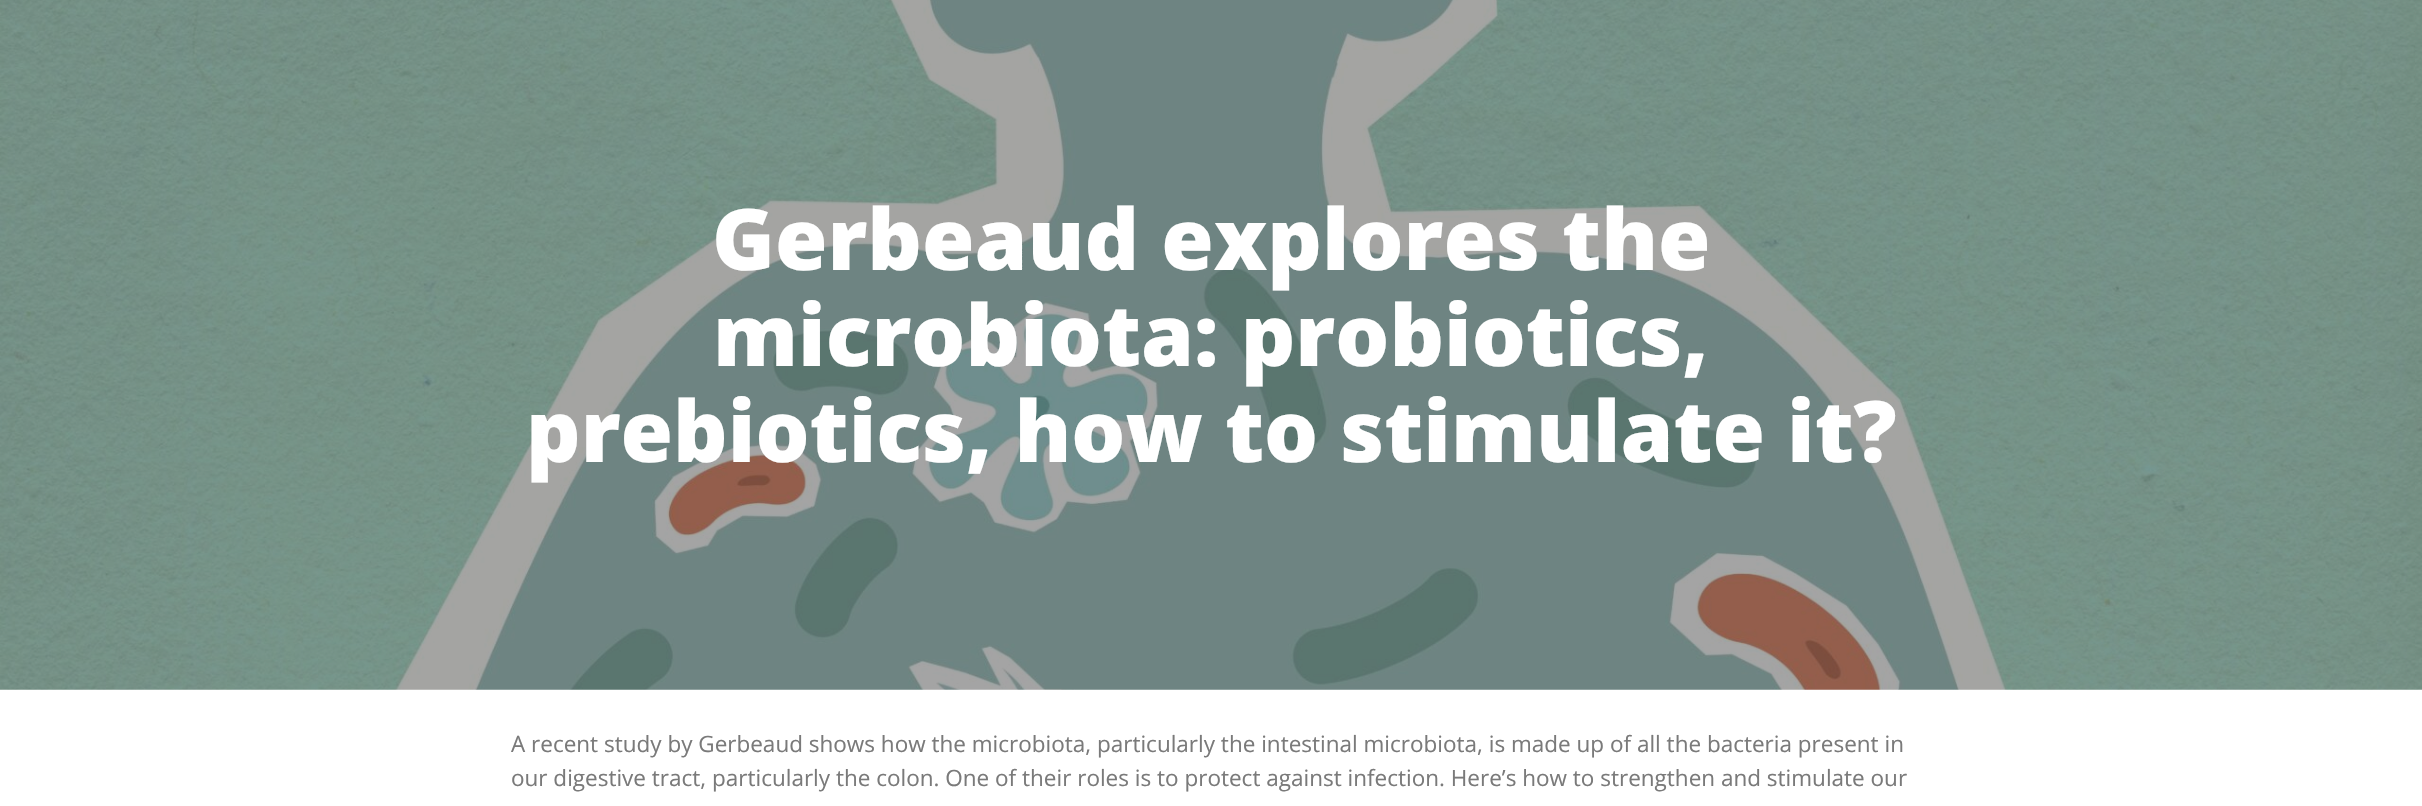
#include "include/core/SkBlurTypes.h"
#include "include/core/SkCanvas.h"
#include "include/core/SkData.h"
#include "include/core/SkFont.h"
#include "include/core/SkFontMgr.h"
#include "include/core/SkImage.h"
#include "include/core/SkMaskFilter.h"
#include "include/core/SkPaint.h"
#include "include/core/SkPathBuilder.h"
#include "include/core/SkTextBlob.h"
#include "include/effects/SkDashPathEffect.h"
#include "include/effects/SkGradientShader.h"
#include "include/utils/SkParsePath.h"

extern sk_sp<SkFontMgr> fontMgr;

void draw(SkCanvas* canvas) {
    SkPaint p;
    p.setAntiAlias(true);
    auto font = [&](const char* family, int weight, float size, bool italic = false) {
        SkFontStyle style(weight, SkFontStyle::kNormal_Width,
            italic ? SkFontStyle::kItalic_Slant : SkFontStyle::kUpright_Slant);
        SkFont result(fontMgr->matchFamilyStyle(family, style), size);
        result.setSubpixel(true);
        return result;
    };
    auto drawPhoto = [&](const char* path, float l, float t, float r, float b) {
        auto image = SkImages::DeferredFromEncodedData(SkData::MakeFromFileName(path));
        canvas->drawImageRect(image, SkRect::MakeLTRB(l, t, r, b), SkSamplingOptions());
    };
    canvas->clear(0xFFFFFFFF);
    drawPhoto("media/1.png", 0, 0, 2422, 690);
    auto font1 = font("Open Sans", 800, 85);
    p.setColor(0xFFFFFFFF);
    {
        const struct { const char* s; float x, y; } items[] = {
            {"Gerbeaud explores the", 712, 270},
            {"microbiota: probiotics,", 713, 366},
            {"prebiotics, how to stimulate it?", 526, 462},
        };
        for (auto [s, x, y] : items) {
            canvas->drawString(s, x, y, font1, p);
        }
    }
    auto font2 = font("Open Sans", 400, 22.5f);
    p.setColor(0xFF7A7A7A);
    canvas->drawString("A recent study by Gerbeaud shows how the microbiota, particularly the intestinal microbiota, is made up of all the bacteria present in", 511, 752, font2, p);
    canvas->drawString("our digestive tract, particularly the colon. One of their roles is to protect against infection. Here’s how to strengthen and stimulate our", 511, 786, font2, p);
}
